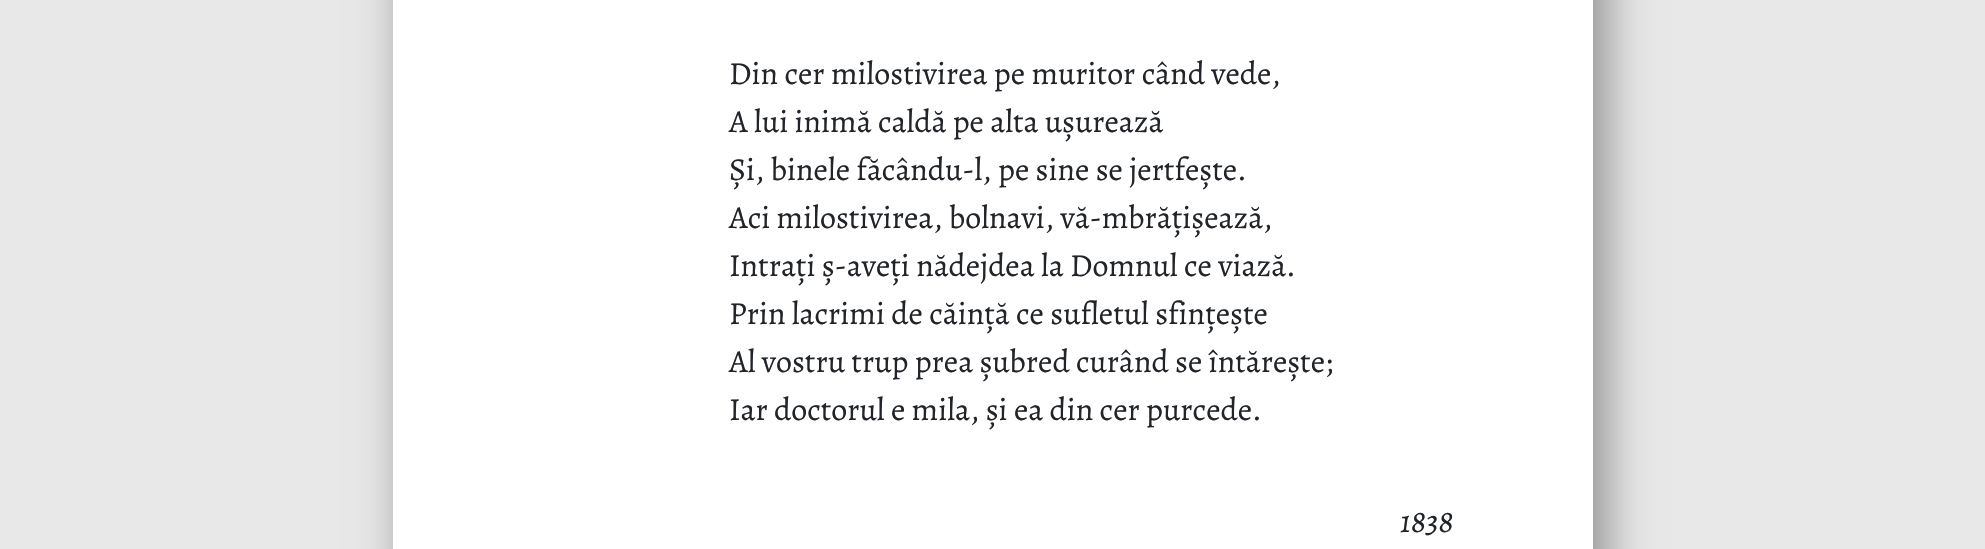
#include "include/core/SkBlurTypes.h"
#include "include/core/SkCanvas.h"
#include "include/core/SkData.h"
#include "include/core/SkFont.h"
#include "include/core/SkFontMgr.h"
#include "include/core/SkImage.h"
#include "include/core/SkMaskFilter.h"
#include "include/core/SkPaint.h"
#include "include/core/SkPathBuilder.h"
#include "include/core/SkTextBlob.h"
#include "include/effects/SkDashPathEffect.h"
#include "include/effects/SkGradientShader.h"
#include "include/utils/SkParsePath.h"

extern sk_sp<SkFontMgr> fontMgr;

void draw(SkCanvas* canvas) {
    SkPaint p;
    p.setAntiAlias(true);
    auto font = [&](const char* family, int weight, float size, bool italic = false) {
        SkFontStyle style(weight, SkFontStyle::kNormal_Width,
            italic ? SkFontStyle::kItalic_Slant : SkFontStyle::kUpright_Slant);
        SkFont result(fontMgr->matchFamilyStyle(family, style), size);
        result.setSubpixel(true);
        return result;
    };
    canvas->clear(0xFFE8E8E8);
    p.setColor(0x66000000);
    p.setMaskFilter(SkMaskFilter::MakeBlur(kNormal_SkBlurStyle, 22.5f));
    canvas->drawRect(SkRect::MakeLTRB(405, -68, 1605, 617), p);
    p.setMaskFilter(nullptr);
    p.setColor(0xFFFFFFFF);
    canvas->drawRect(SkRect::MakeLTRB(393, 0, 1593, 549), p);
    auto font1 = font("Alegreya", 400, 32);
    p.setColor(0xFF212529);
    {
        const struct { const char* s; float x, y; } items[] = {
            {"Din cer milostivirea pe muritor când vede,", 729, 84},
            {"A lui inimă caldă pe alta ușurează", 729, 132},
            {"Și, binele făcându-l, pe sine se jertfește.", 729, 180},
            {"Aci milostivirea, bolnavi, vă-mbrățișează,", 729, 228},
            {"Intrați ș-aveți nădejdea la Domnul ce viază.", 729, 276},
            {"Prin lacrimi de căință ce sufletul sfințește", 729, 324},
            {"Al vostru trup prea șubred curând se întărește;", 729, 372},
            {"Iar doctorul e mila, și ea din cer purcede.", 729, 420},
        };
        for (auto [s, x, y] : items) {
            canvas->drawString(s, x, y, font1, p);
        }
    }
    auto font2 = font("Alegreya", 400, 32, true);
    canvas->drawString("1838", 1400, 532, font2, p);
}
